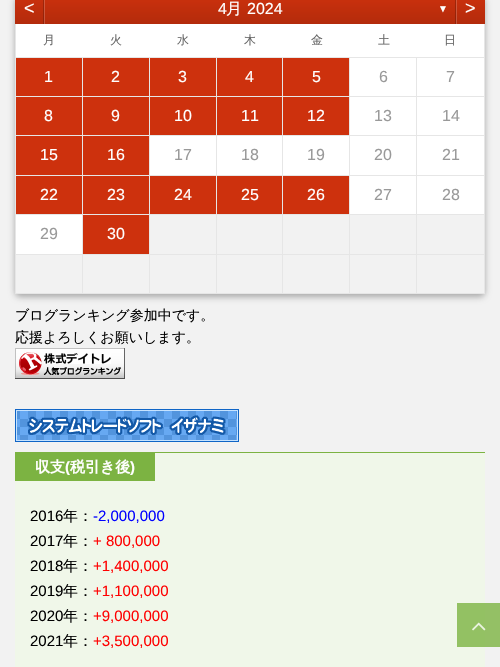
#include "include/core/SkBlurTypes.h"
#include "include/core/SkCanvas.h"
#include "include/core/SkData.h"
#include "include/core/SkFont.h"
#include "include/core/SkFontMgr.h"
#include "include/core/SkImage.h"
#include "include/core/SkMaskFilter.h"
#include "include/core/SkPaint.h"
#include "include/core/SkPathBuilder.h"
#include "include/core/SkTextBlob.h"
#include "include/effects/SkDashPathEffect.h"
#include "include/effects/SkGradientShader.h"
#include "include/utils/SkParsePath.h"

extern sk_sp<SkFontMgr> fontMgr;

void draw(SkCanvas* canvas) {
    SkPaint p;
    p.setAntiAlias(true);
    auto font = [&](const char* family, int weight, float size, bool italic = false) {
        SkFontStyle style(weight, SkFontStyle::kNormal_Width,
            italic ? SkFontStyle::kItalic_Slant : SkFontStyle::kUpright_Slant);
        SkFont result(fontMgr->matchFamilyStyle(family, style), size);
        result.setSubpixel(true);
        return result;
    };
    auto drawPhoto = [&](const char* path, float l, float t, float r, float b) {
        auto image = SkImages::DeferredFromEncodedData(SkData::MakeFromFileName(path));
        canvas->drawImageRect(image, SkRect::MakeLTRB(l, t, r, b), SkSamplingOptions());
    };
    canvas->clear(0xFFF2F2F2);
    p.setColor(0xFF94C065);
    canvas->drawRect(SkRect::MakeLTRB(485, 603, 500, 647), p);
    canvas->save();
    canvas->clipPath(SkPathBuilder(SkPathFillType::kEvenOdd).moveTo(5, 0).lineTo(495, 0).lineTo(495, 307).lineTo(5, 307).close().moveTo(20, -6).lineTo(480, -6).cubicTo(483, -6, 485, -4, 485, -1).lineTo(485, 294).lineTo(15, 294).lineTo(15, -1).cubicTo(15, -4, 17, -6, 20, -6).close().detach(), true);
    p.setColor(0x4D000000);
    p.setMaskFilter(SkMaskFilter::MakeBlur(kNormal_SkBlurStyle, 3));
    canvas->drawRoundRect(SkRect::MakeLTRB(15, -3, 485, 297), 5, 5, p);
    p.setMaskFilter(nullptr);
    canvas->restore();
    {
        const SkColor colors[] = {0xFFCD310D, 0xFFB32B0C};
        const float stops[] = {0, 1};
        const SkPoint ends[] = {{250, -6}, {250, 24}};
        p.setShader(SkGradientShader::MakeLinear(ends, colors, stops, 2, SkTileMode::kClamp));
        p.setAlpha(255);
    }
    canvas->drawRect(SkRect::MakeLTRB(15, 0, 485, 24), p);
    {
        const SkColor colors[] = {0xFFA4270A, 0xFF8F220A};
        const float stops[] = {0, 1};
        const SkPoint ends[] = {{250, -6}, {250, 24}};
        p.setShader(SkGradientShader::MakeLinear(ends, colors, stops, 2, SkTileMode::kClamp));
        p.setAlpha(255);
    }
    canvas->drawRect(SkRect::MakeLTRB(455, 0, 456, 24), p);
    {
        const SkColor colors[] = {0xFFD75A3D, 0xFFC2553D};
        const float stops[] = {0, 1};
        const SkPoint ends[] = {{250, -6}, {250, 24}};
        p.setShader(SkGradientShader::MakeLinear(ends, colors, stops, 2, SkTileMode::kClamp));
        p.setAlpha(255);
    }
    canvas->drawRect(SkRect::MakeLTRB(456, 0, 457, 24), p);
    canvas->drawRect(SkRect::MakeLTRB(44, 0, 45, 24), p);
    {
        const SkColor colors[] = {0xFFA4270A, 0xFF8F220A};
        const float stops[] = {0, 1};
        const SkPoint ends[] = {{250, -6}, {250, 24}};
        p.setShader(SkGradientShader::MakeLinear(ends, colors, stops, 2, SkTileMode::kClamp));
        p.setAlpha(255);
    }
    canvas->drawRect(SkRect::MakeLTRB(43, 0, 44, 24), p);
    auto font1 = font("Liberation Sans", 400, 18);
    p.setShader(nullptr);
    p.setColor(0xFFFFFFFF);
    canvas->drawString("<", 24, 14, font1, p);
    auto font2 = font("Liberation Sans", 400, 16);
    canvas->drawString("4", 218, 14, font2, p);
    auto font3 = font("WenQuanYi Zen Hei", 500, 16);
    canvas->drawString("月", 226, 14, font3, p);
    canvas->drawString("2024", 247, 14, font2, p);
    auto font4 = font("Liberation Sans", 400, 10);
    canvas->drawString("▼", 438, 12, font4, p);
    canvas->drawString(">", 465, 14, font1, p);
    {
        const struct { float l, t, r, b; SkColor color; } items[] = {
            {484, 24, 485, 57, 0xFFE6E6E6},
            {15, 24, 16, 57, 0xFFE6E6E6},
            {16, 24, 484, 57, 0xFFFFFFFF},
        };
        for (auto [l, t, r, b, color] : items) {
            p.setColor(color);
            canvas->drawRect(SkRect::MakeLTRB(l, t, r, b), p);
        }
    }
    auto font5 = font("WenQuanYi Zen Hei", 500, 12);
    p.setColor(0xFF666666);
    {
        const struct { const char* s; float x, y; } items[] = {
            {"月", 43, 44},
            {"火", 110, 44},
            {"水", 177, 44},
            {"木", 244, 44},
            {"金", 311, 44},
            {"土", 378, 44},
            {"日", 444, 44},
        };
        for (auto [s, x, y] : items) {
            canvas->drawString(s, x, y, font5, p);
        }
    }
    {
        const struct { float l, t, r, b; SkColor color; } items[] = {
            {15, 57, 485, 58, 0xFFE6E6E6},
            {484, 57, 485, 294, 0xFFE6E6E6},
            {15, 57, 16, 294, 0xFFE6E6E6},
            {16, 58, 82, 96, 0xFFCD310D},
            {82, 58, 83, 294, 0xFFE6E6E6},
            {16, 96, 83, 97, 0xFFE6E6E6},
        };
        for (auto [l, t, r, b, color] : items) {
            p.setColor(color);
            canvas->drawRect(SkRect::MakeLTRB(l, t, r, b), p);
        }
    }
    p.setColor(0xFFFFFFFF);
    canvas->drawString("1", 44, 82, font2, p);
    {
        const struct { float l, t, r, b; SkColor color; } items[] = {
            {83, 58, 149, 96, 0xFFCD310D},
            {149, 58, 150, 294, 0xFFE6E6E6},
            {83, 96, 150, 97, 0xFFE6E6E6},
        };
        for (auto [l, t, r, b, color] : items) {
            p.setColor(color);
            canvas->drawRect(SkRect::MakeLTRB(l, t, r, b), p);
        }
    }
    p.setColor(0xFFFFFFFF);
    canvas->drawString("2", 111, 82, font2, p);
    {
        const struct { float l, t, r, b; SkColor color; } items[] = {
            {150, 58, 216, 96, 0xFFCD310D},
            {216, 58, 217, 294, 0xFFE6E6E6},
            {150, 96, 217, 97, 0xFFE6E6E6},
        };
        for (auto [l, t, r, b, color] : items) {
            p.setColor(color);
            canvas->drawRect(SkRect::MakeLTRB(l, t, r, b), p);
        }
    }
    p.setColor(0xFFFFFFFF);
    canvas->drawString("3", 178, 82, font2, p);
    {
        const struct { float l, t, r, b; SkColor color; } items[] = {
            {217, 58, 282, 96, 0xFFCD310D},
            {282, 58, 283, 294, 0xFFE6E6E6},
            {217, 96, 283, 97, 0xFFE6E6E6},
        };
        for (auto [l, t, r, b, color] : items) {
            p.setColor(color);
            canvas->drawRect(SkRect::MakeLTRB(l, t, r, b), p);
        }
    }
    p.setColor(0xFFFFFFFF);
    canvas->drawString("4", 245, 82, font2, p);
    {
        const struct { float l, t, r, b; SkColor color; } items[] = {
            {283, 58, 349, 96, 0xFFCD310D},
            {349, 58, 350, 294, 0xFFE6E6E6},
            {283, 96, 350, 97, 0xFFE6E6E6},
        };
        for (auto [l, t, r, b, color] : items) {
            p.setColor(color);
            canvas->drawRect(SkRect::MakeLTRB(l, t, r, b), p);
        }
    }
    p.setColor(0xFFFFFFFF);
    canvas->drawString("5", 312, 82, font2, p);
    {
        const struct { float l, t, r, b; SkColor color; } items[] = {
            {350, 58, 416, 96, 0xFFFFFFFF},
            {416, 58, 417, 294, 0xFFE6E6E6},
            {350, 96, 484, 97, 0xFFE6E6E6},
        };
        for (auto [l, t, r, b, color] : items) {
            p.setColor(color);
            canvas->drawRect(SkRect::MakeLTRB(l, t, r, b), p);
        }
    }
    p.setColor(0xFF999999);
    canvas->drawString("6", 379, 82, font2, p);
    p.setColor(0xFFFFFFFF);
    canvas->drawRect(SkRect::MakeLTRB(417, 58, 484, 96), p);
    p.setColor(0xFF999999);
    canvas->drawString("7", 446, 82, font2, p);
    p.setColor(0xFFCD310D);
    canvas->drawRect(SkRect::MakeLTRB(16, 97, 82, 135), p);
    p.setColor(0xFFE6E6E6);
    canvas->drawRect(SkRect::MakeLTRB(16, 135, 484, 136), p);
    p.setColor(0xFFFFFFFF);
    canvas->drawString("8", 44, 121, font2, p);
    p.setColor(0xFFCD310D);
    canvas->drawRect(SkRect::MakeLTRB(83, 97, 149, 135), p);
    p.setColor(0xFFFFFFFF);
    canvas->drawString("9", 111, 121, font2, p);
    p.setColor(0xFFCD310D);
    canvas->drawRect(SkRect::MakeLTRB(150, 97, 216, 135), p);
    p.setColor(0xFFFFFFFF);
    canvas->drawString("10", 174, 121, font2, p);
    p.setColor(0xFFCD310D);
    canvas->drawRect(SkRect::MakeLTRB(217, 97, 282, 135), p);
    p.setColor(0xFFFFFFFF);
    canvas->drawString("11", 241, 121, font2, p);
    p.setColor(0xFFCD310D);
    canvas->drawRect(SkRect::MakeLTRB(283, 97, 349, 135), p);
    p.setColor(0xFFFFFFFF);
    canvas->drawString("12", 307, 121, font2, p);
    canvas->drawRect(SkRect::MakeLTRB(350, 97, 416, 135), p);
    p.setColor(0xFF999999);
    canvas->drawString("13", 374, 121, font2, p);
    p.setColor(0xFFFFFFFF);
    canvas->drawRect(SkRect::MakeLTRB(417, 97, 484, 135), p);
    p.setColor(0xFF999999);
    canvas->drawString("14", 442, 121, font2, p);
    p.setColor(0xFFCD310D);
    canvas->drawRect(SkRect::MakeLTRB(16, 136, 82, 175), p);
    p.setColor(0xFFE6E6E6);
    canvas->drawRect(SkRect::MakeLTRB(16, 175, 484, 176), p);
    p.setColor(0xFFFFFFFF);
    canvas->drawString("15", 40, 160, font2, p);
    p.setColor(0xFFCD310D);
    canvas->drawRect(SkRect::MakeLTRB(83, 136, 149, 175), p);
    p.setColor(0xFFFFFFFF);
    canvas->drawString("16", 107, 160, font2, p);
    canvas->drawRect(SkRect::MakeLTRB(150, 136, 216, 175), p);
    p.setColor(0xFF999999);
    canvas->drawString("17", 174, 160, font2, p);
    p.setColor(0xFFFFFFFF);
    canvas->drawRect(SkRect::MakeLTRB(217, 136, 282, 175), p);
    p.setColor(0xFF999999);
    canvas->drawString("18", 241, 160, font2, p);
    p.setColor(0xFFFFFFFF);
    canvas->drawRect(SkRect::MakeLTRB(283, 136, 349, 175), p);
    p.setColor(0xFF999999);
    canvas->drawString("19", 307, 160, font2, p);
    p.setColor(0xFFFFFFFF);
    canvas->drawRect(SkRect::MakeLTRB(350, 136, 416, 175), p);
    p.setColor(0xFF999999);
    canvas->drawString("20", 374, 160, font2, p);
    p.setColor(0xFFFFFFFF);
    canvas->drawRect(SkRect::MakeLTRB(417, 136, 484, 175), p);
    p.setColor(0xFF999999);
    canvas->drawString("21", 442, 160, font2, p);
    p.setColor(0xFFCD310D);
    canvas->drawRect(SkRect::MakeLTRB(16, 176, 82, 214), p);
    p.setColor(0xFFE6E6E6);
    canvas->drawRect(SkRect::MakeLTRB(16, 214, 484, 215), p);
    p.setColor(0xFFFFFFFF);
    canvas->drawString("22", 40, 200, font2, p);
    p.setColor(0xFFCD310D);
    canvas->drawRect(SkRect::MakeLTRB(83, 176, 149, 214), p);
    p.setColor(0xFFFFFFFF);
    canvas->drawString("23", 107, 200, font2, p);
    p.setColor(0xFFCD310D);
    canvas->drawRect(SkRect::MakeLTRB(150, 176, 216, 214), p);
    p.setColor(0xFFFFFFFF);
    canvas->drawString("24", 174, 200, font2, p);
    p.setColor(0xFFCD310D);
    canvas->drawRect(SkRect::MakeLTRB(217, 176, 282, 214), p);
    p.setColor(0xFFFFFFFF);
    canvas->drawString("25", 241, 200, font2, p);
    p.setColor(0xFFCD310D);
    canvas->drawRect(SkRect::MakeLTRB(283, 176, 349, 214), p);
    p.setColor(0xFFFFFFFF);
    canvas->drawString("26", 307, 200, font2, p);
    canvas->drawRect(SkRect::MakeLTRB(350, 176, 416, 214), p);
    p.setColor(0xFF999999);
    canvas->drawString("27", 374, 200, font2, p);
    p.setColor(0xFFFFFFFF);
    canvas->drawRect(SkRect::MakeLTRB(417, 176, 484, 214), p);
    p.setColor(0xFF999999);
    canvas->drawString("28", 442, 200, font2, p);
    p.setColor(0xFFFFFFFF);
    canvas->drawRect(SkRect::MakeLTRB(16, 215, 82, 254), p);
    p.setColor(0xFFE6E6E6);
    canvas->drawRect(SkRect::MakeLTRB(16, 254, 484, 255), p);
    p.setColor(0xFF999999);
    canvas->drawString("29", 40, 239, font2, p);
    p.setColor(0xFFCD310D);
    canvas->drawRect(SkRect::MakeLTRB(83, 215, 149, 254), p);
    p.setColor(0xFFFFFFFF);
    canvas->drawString("30", 107, 239, font2, p);
    p.setColor(0xFFE6E6E6);
    canvas->drawRect(SkRect::MakeLTRB(16, 293, 484, 294), p);
    auto font6 = font("WenQuanYi Zen Hei", 500, 14);
    p.setColor(0xFF000000);
    canvas->drawString("ブログランキング参加中です。", 15, 320, font6, p);
    canvas->drawString("応援よろしくお願いします。", 15, 342, font6, p);
    drawPhoto("media/1.png", 15, 348, 125, 379);
    drawPhoto("media/2.png", 15, 409, 239, 442);
    {
        const struct { float l, t, r, b; SkColor color; } items[] = {
            {15, 453, 485, 667, 0xFFF0F7E9},
            {457, 603, 485, 647, 0xFF93C163},
            {15, 452, 485, 453, 0xFF7CB342},
            {15, 453, 155, 481, 0xFF7CB342},
        };
        for (auto [l, t, r, b, color] : items) {
            p.setColor(color);
            canvas->drawRect(SkRect::MakeLTRB(l, t, r, b), p);
        }
    }
    auto font7 = font("WenQuanYi Zen Hei", 700, 15);
    p.setColor(0xFFFFFFFF);
    canvas->drawString("収支", 35, 472, font7, p);
    auto font8 = font("Liberation Sans", 700, 15);
    canvas->drawString("(", 65, 472, font8, p);
    canvas->drawString("税引き後", 70, 472, font7, p);
    canvas->drawString(")", 130, 472, font8, p);
    auto font9 = font("Liberation Sans", 400, 15);
    p.setColor(0xFF000000);
    canvas->drawString("2016", 30, 521, font9, p);
    auto font10 = font("WenQuanYi Zen Hei", 500, 15);
    canvas->drawString("年：", 63, 521, font10, p);
    p.setColor(0xFF0000FF);
    canvas->drawString("-2,000,000", 93, 521, font9, p);
    p.setColor(0xFF000000);
    canvas->drawString("2017", 30, 546, font9, p);
    canvas->drawString("年：", 63, 546, font10, p);
    p.setColor(0xFFFF0000);
    canvas->drawString("+ 800,000", 93, 546, font9, p);
    p.setColor(0xFF000000);
    canvas->drawString("2018", 30, 571, font9, p);
    canvas->drawString("年：", 63, 571, font10, p);
    p.setColor(0xFFFF0000);
    canvas->drawString("+1,400,000", 93, 571, font9, p);
    p.setColor(0xFF000000);
    canvas->drawString("2019", 30, 596, font9, p);
    canvas->drawString("年：", 63, 596, font10, p);
    p.setColor(0xFFFF0000);
    canvas->drawString("+1,100,000", 93, 596, font9, p);
    p.setColor(0xFF000000);
    canvas->drawString("2020", 30, 621, font9, p);
    canvas->drawString("年：", 63, 621, font10, p);
    p.setColor(0xFFFF0000);
    canvas->drawString("+9,000,000", 93, 621, font9, p);
    p.setColor(0xFF000000);
    canvas->drawString("2021", 30, 646, font9, p);
    canvas->drawString("年：", 63, 646, font10, p);
    p.setColor(0xFFFF0000);
    canvas->drawString("+3,500,000", 93, 646, font9, p);
    drawPhoto("media/3.png", 472, 622, 486, 631);
}
